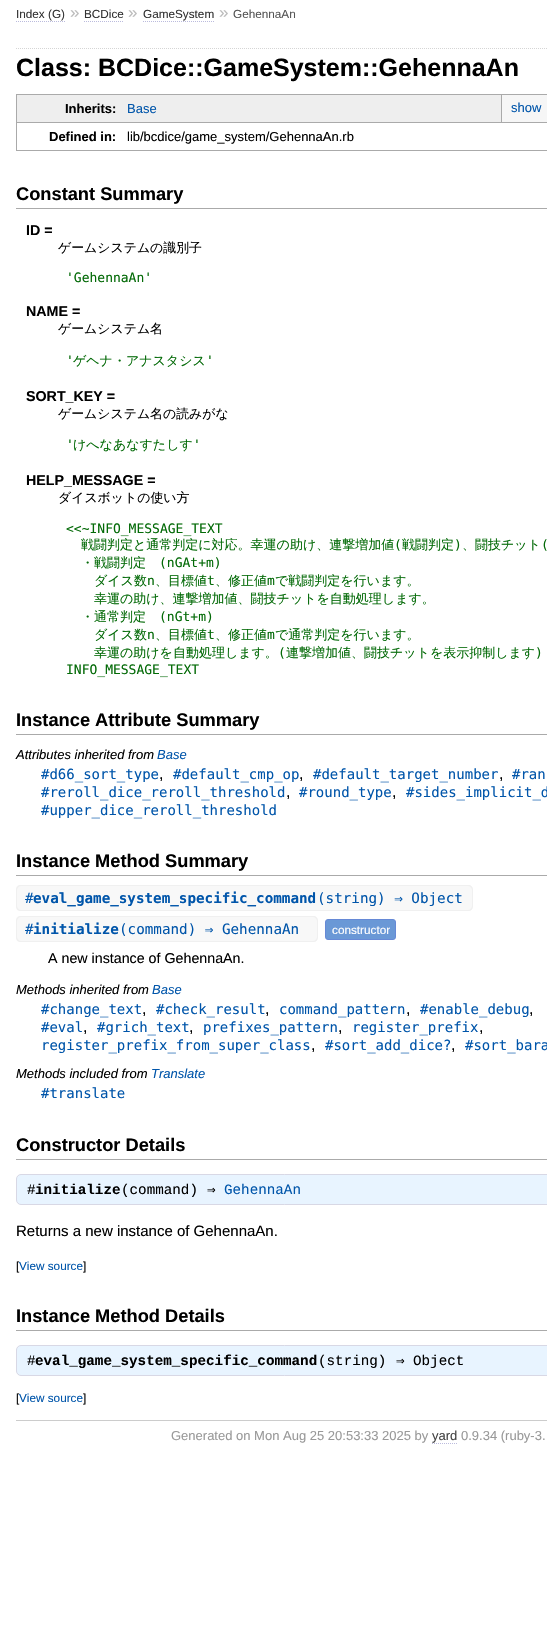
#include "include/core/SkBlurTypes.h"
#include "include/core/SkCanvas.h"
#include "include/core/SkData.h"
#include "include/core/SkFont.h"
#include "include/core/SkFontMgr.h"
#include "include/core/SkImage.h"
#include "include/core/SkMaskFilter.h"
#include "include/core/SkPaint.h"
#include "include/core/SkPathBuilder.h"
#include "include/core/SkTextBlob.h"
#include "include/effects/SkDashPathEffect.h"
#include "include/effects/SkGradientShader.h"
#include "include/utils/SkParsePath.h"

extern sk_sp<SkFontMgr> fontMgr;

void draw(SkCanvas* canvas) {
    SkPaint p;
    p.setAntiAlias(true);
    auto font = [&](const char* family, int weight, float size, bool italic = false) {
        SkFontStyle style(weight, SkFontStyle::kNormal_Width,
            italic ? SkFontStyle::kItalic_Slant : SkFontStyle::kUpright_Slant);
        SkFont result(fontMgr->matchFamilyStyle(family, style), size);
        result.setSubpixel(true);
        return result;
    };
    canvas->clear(0xFFFFFFFF);
    auto font1 = font("Liberation Sans", 400, 11.75f);
    p.setColor(0xFF333333);
    canvas->drawString("Index (G)", 16, 18, font1, p);
    p.setStyle(SkPaint::kStroke_Style);
    p.setStrokeWidth(1);
    p.setColor(0xFFBBBBDD);
    p.setPathEffect(SkDashPathEffect::Make({{1, 1}}, 0));
    canvas->drawPath(SkPathBuilder().moveTo(16, 21.5f).lineTo(65, 21.5f).detach(), p);
    p.setPathEffect(nullptr);
    auto font2 = font("Liberation Sans", 400, 17);
    p.setStyle(SkPaint::kFill_Style);
    p.setColor(0xFFBBBBBB);
    canvas->drawString("»", 70, 18, font2, p);
    p.setColor(0xFF333333);
    canvas->drawString("BCDice", 84, 18, font1, p);
    p.setStyle(SkPaint::kStroke_Style);
    p.setColor(0xFFBBBBDD);
    p.setPathEffect(SkDashPathEffect::Make({{1, 1}}, 0));
    canvas->drawPath(SkPathBuilder().moveTo(84, 21.5f).lineTo(124, 21.5f).detach(), p);
    p.setPathEffect(nullptr);
    p.setStyle(SkPaint::kFill_Style);
    p.setColor(0xFFBBBBBB);
    canvas->drawString("»", 128, 18, font2, p);
    p.setColor(0xFF333333);
    canvas->drawString("GameSystem", 143, 18, font1, p);
    p.setStyle(SkPaint::kStroke_Style);
    p.setColor(0xFFBBBBDD);
    p.setPathEffect(SkDashPathEffect::Make({{1, 1}}, 0));
    canvas->drawPath(SkPathBuilder().moveTo(143, 21.5f).lineTo(214, 21.5f).detach(), p);
    p.setPathEffect(nullptr);
    p.setStyle(SkPaint::kFill_Style);
    p.setColor(0xFFBBBBBB);
    canvas->drawString("»", 219, 18, font2, p);
    p.setColor(0xFF555555);
    canvas->drawString("GehennaAn", 233, 18, font1, p);
    p.setStyle(SkPaint::kStroke_Style);
    p.setColor(0xFFD5D5D5);
    p.setPathEffect(SkDashPathEffect::Make({{1, 1}}, 0));
    canvas->drawPath(SkPathBuilder().moveTo(16, 48.5f).lineTo(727, 48.5f).detach(), p);
    p.setPathEffect(nullptr);
    auto font3 = font("Liberation Sans", 700, 25);
    p.setStyle(SkPaint::kFill_Style);
    p.setColor(0xFF000000);
    canvas->drawString("Class: BCDice::GameSystem::GehennaAn", 16, 76, font3, p);
    {
        const struct { float l, t, r, b; SkColor color; } items[] = {
            {17, 95, 501, 122, 0xFFEEEEEE},
            {16, 94, 547, 95, 0xFFAAAAAA},
            {16, 94, 17, 122, 0xFFAAAAAA},
        };
        for (auto [l, t, r, b, color] : items) {
            p.setColor(color);
            canvas->drawRect(SkRect::MakeLTRB(l, t, r, b), p);
        }
    }
    auto font4 = font("Liberation Sans", 700, 13);
    p.setColor(0xFF000000);
    canvas->drawString("Inherits:", 65, 113, font4, p);
    auto font5 = font("Liberation Sans", 400, 13);
    p.setColor(0xFF0055AA);
    canvas->drawString("Base", 127, 113, font5, p);
    p.setColor(0xFFF6F6F6);
    canvas->drawRect(SkRect::MakeLTRB(502, 95, 547, 122), p);
    p.setColor(0xFFAAAAAA);
    canvas->drawRect(SkRect::MakeLTRB(501, 95, 502, 122), p);
    p.setColor(0xFF0055AA);
    canvas->drawString("show", 511, 112, font5, p);
    {
        const struct { float l, t, r, b; SkColor color; } items[] = {
            {16, 122, 547, 123, 0xFFAAAAAA},
            {16, 150, 547, 151, 0xFFAAAAAA},
            {16, 122, 17, 151, 0xFFAAAAAA},
        };
        for (auto [l, t, r, b, color] : items) {
            p.setColor(color);
            canvas->drawRect(SkRect::MakeLTRB(l, t, r, b), p);
        }
    }
    p.setColor(0xFF000000);
    canvas->drawString("Defined in:", 49, 141, font4, p);
    canvas->drawString("lib/bcdice/game_system/GehennaAn.rb", 127, 141, font5, p);
    p.setColor(0xFFAAAAAA);
    canvas->drawRect(SkRect::MakeLTRB(16, 208, 547, 209), p);
    auto font6 = font("Liberation Sans", 700, 18.25f);
    p.setColor(0xFF000000);
    canvas->drawString("Constant Summary", 16, 200, font6, p);
    auto font7 = font("Liberation Sans", 700, 14.25f);
    canvas->drawString("ID =", 26, 235, font7, p);
    auto font8 = font("WenQuanYi Zen Hei", 500, 12.9f);
    canvas->drawString("ゲームシステムの識別子", 58, 252, font8, p);
    auto font9 = font("DejaVu Sans Mono", 400, 13);
    p.setColor(0xFF036A07);
    canvas->drawString("'GehennaAn'", 66, 282, font9, p);
    p.setColor(0xFF000000);
    canvas->drawString("NAME =", 26, 316, font7, p);
    canvas->drawString("ゲームシステム名", 58, 333, font8, p);
    p.setColor(0xFF036A07);
    canvas->drawString("'", 66, 365, font9, p);
    auto font10 = font("WenQuanYi Zen Hei", 500, 13);
    canvas->drawString("ゲヘナ・アナスタシス", 73, 365, font10, p);
    canvas->drawString("'", 206, 365, font9, p);
    p.setColor(0xFF000000);
    canvas->drawString("SORT_KEY =", 26, 401, font7, p);
    canvas->drawString("ゲームシステム名の読みがな", 58, 418, font8, p);
    p.setColor(0xFF036A07);
    canvas->drawString("'", 66, 449, font9, p);
    canvas->drawString("けへなあなすたしす", 73, 449, font10, p);
    canvas->drawString("'", 193, 449, font9, p);
    p.setColor(0xFF000000);
    canvas->drawString("HELP_MESSAGE =", 26, 485, font7, p);
    canvas->drawString("ダイスボットの使い方", 58, 502, font8, p);
    p.setColor(0xFF036A07);
    canvas->drawString("<<~INFO_MESSAGE_TEXT", 66, 533, font9, p);
    canvas->drawString("戦闘判定と通常判定に対応。幸運の助け、連撃増加値", 81, 549, font10, p);
    canvas->drawString("(", 394, 549, font9, p);
    canvas->drawString("戦闘判定", 402, 549, font10, p);
    canvas->drawString(")", 454, 549, font9, p);
    canvas->drawString("、闘技チット", 462, 549, font10, p);
    canvas->drawString("(", 541, 549, font9, p);
    canvas->drawString("・戦闘判定", 81, 567, font10, p);
    canvas->drawString("(nGAt+m)", 159, 567, font9, p);
    canvas->drawString("ダイス数", 94, 585, font10, p);
    canvas->drawString("n", 147, 585, font9, p);
    canvas->drawString("、目標値", 155, 585, font10, p);
    canvas->drawString("t", 207, 585, font9, p);
    canvas->drawString("、修正値", 215, 585, font10, p);
    canvas->drawString("m", 267, 585, font9, p);
    {
        const struct { const char* s; float x, y; } items[] = {
            {"で戦闘判定を行います。", 275, 585},
            {"幸運の助け、連撃増加値、闘技チットを自動処理します。", 94, 603},
            {"・通常判定", 81, 621},
        };
        for (auto [s, x, y] : items) {
            canvas->drawString(s, x, y, font10, p);
        }
    }
    canvas->drawString("(nGt+m)", 159, 621, font9, p);
    canvas->drawString("ダイス数", 94, 639, font10, p);
    canvas->drawString("n", 147, 639, font9, p);
    canvas->drawString("、目標値", 155, 639, font10, p);
    canvas->drawString("t", 207, 639, font9, p);
    canvas->drawString("、修正値", 215, 639, font10, p);
    canvas->drawString("m", 267, 639, font9, p);
    canvas->drawString("で通常判定を行います。", 275, 639, font10, p);
    canvas->drawString("幸運の助けを自動処理します。", 94, 657, font10, p);
    canvas->drawString("(", 278, 657, font9, p);
    canvas->drawString("連撃増加値、闘技チットを表示抑制します", 286, 657, font10, p);
    canvas->drawString(")", 535, 657, font9, p);
    canvas->drawString("INFO_MESSAGE_TEXT", 66, 674, font9, p);
    p.setColor(0xFFAAAAAA);
    canvas->drawRect(SkRect::MakeLTRB(16, 734, 547, 735), p);
    p.setColor(0xFF000000);
    canvas->drawString("Instance Attribute Summary", 16, 726, font6, p);
    auto font11 = font("Liberation Sans", 400, 13, true);
    canvas->drawString("Attributes inherited from", 16, 759, font11, p);
    p.setColor(0xFF0055AA);
    canvas->drawString("Base", 157, 759, font11, p);
    auto font12 = font("DejaVu Sans Mono", 400, 14);
    canvas->drawString("#d66_sort_type", 41, 779, font12, p);
    auto font13 = font("Liberation Sans", 400, 16);
    p.setColor(0xFF000000);
    canvas->drawString(",", 159, 779, font13, p);
    p.setColor(0xFF0055AA);
    canvas->drawString("#default_cmp_op", 173, 779, font12, p);
    p.setColor(0xFF000000);
    canvas->drawString(",", 299, 779, font13, p);
    p.setColor(0xFF0055AA);
    canvas->drawString("#default_target_number", 313, 779, font12, p);
    p.setColor(0xFF000000);
    canvas->drawString(",", 499, 779, font13, p);
    p.setColor(0xFF0055AA);
    canvas->drawString("#ran", 512, 779, font12, p);
    canvas->drawString("#reroll_dice_reroll_threshold", 41, 797, font12, p);
    p.setColor(0xFF000000);
    canvas->drawString(",", 286, 797, font13, p);
    p.setColor(0xFF0055AA);
    canvas->drawString("#round_type", 299, 797, font12, p);
    p.setColor(0xFF000000);
    canvas->drawString(",", 392, 797, font13, p);
    p.setColor(0xFF0055AA);
    canvas->drawString("#sides_implicit_d", 406, 797, font12, p);
    canvas->drawString("#upper_dice_reroll_threshold", 41, 815, font12, p);
    p.setColor(0xFFAAAAAA);
    canvas->drawRect(SkRect::MakeLTRB(16, 875, 547, 876), p);
    p.setColor(0xFF000000);
    canvas->drawString("Instance Method Summary", 16, 867, font6, p);
    p.setColor(0xFFF8F8F8);
    canvas->drawPath(SkPathBuilder().moveTo(21, 885).lineTo(33, 885).lineTo(33, 911).lineTo(21, 911).cubicTo(18, 911, 16, 909, 16, 906).lineTo(16, 890).cubicTo(16, 887, 18, 885, 21, 885).close().detach(), p);
    p.setColor(0xFFF0F0F0);
    canvas->drawPath(SkPathBuilder(SkPathFillType::kEvenOdd).moveTo(21, 885).lineTo(33, 885).lineTo(33, 911).lineTo(21, 911).cubicTo(18, 911, 16, 909, 16, 906).lineTo(16, 890).cubicTo(16, 887, 18, 885, 21, 885).close().moveTo(21, 886).lineTo(33, 886).lineTo(33, 910).lineTo(21, 910).cubicTo(19, 910, 17, 908, 17, 906).lineTo(17, 890).cubicTo(17, 888, 19, 886, 21, 886).close().detach(), p);
    p.setColor(0xFFF8F8F8);
    canvas->drawRect(SkRect::MakeLTRB(33, 886, 317, 910), p);
    auto font14 = font("DejaVu Sans Mono", 400, 14.25f);
    p.setColor(0xFF0055AA);
    canvas->drawString("#", 25, 903, font14, p);
    p.setColor(0xFFF0F0F0);
    canvas->drawRect(SkRect::MakeLTRB(33, 885, 317, 886), p);
    auto font15 = font("DejaVu Sans Mono", 700, 14.25f);
    p.setColor(0xFF0055AA);
    canvas->drawString("eval_game_system_specific_command", 33, 903, font15, p);
    p.setColor(0xFFF0F0F0);
    canvas->drawRect(SkRect::MakeLTRB(33, 910, 317, 911), p);
    p.setColor(0xFFF8F8F8);
    canvas->drawPath(SkPathBuilder().moveTo(317, 885).lineTo(468, 885).cubicTo(471, 885, 473, 887, 473, 890).lineTo(473, 906).cubicTo(473, 909, 471, 911, 468, 911).lineTo(317, 911).close().detach(), p);
    p.setColor(0xFFF0F0F0);
    canvas->drawPath(SkPathBuilder(SkPathFillType::kEvenOdd).moveTo(317, 885).lineTo(468, 885).cubicTo(471, 885, 473, 887, 473, 890).lineTo(473, 906).cubicTo(473, 909, 471, 911, 468, 911).lineTo(317, 911).close().moveTo(317, 886).lineTo(468, 886).cubicTo(470, 886, 472, 888, 472, 890).lineTo(472, 906).cubicTo(472, 908, 470, 910, 468, 910).lineTo(317, 910).close().detach(), p);
    p.setColor(0xFF0055AA);
    canvas->drawString("(string) ⇒ Object", 317, 903, font14, p);
    p.setColor(0xFFF8F8F8);
    canvas->drawPath(SkPathBuilder().moveTo(21, 916).lineTo(33, 916).lineTo(33, 942).lineTo(21, 942).cubicTo(18, 942, 16, 940, 16, 937).lineTo(16, 921).cubicTo(16, 918, 18, 916, 21, 916).close().detach(), p);
    p.setColor(0xFFF0F0F0);
    canvas->drawPath(SkPathBuilder(SkPathFillType::kEvenOdd).moveTo(21, 916).lineTo(33, 916).lineTo(33, 942).lineTo(21, 942).cubicTo(18, 942, 16, 940, 16, 937).lineTo(16, 921).cubicTo(16, 918, 18, 916, 21, 916).close().moveTo(21, 917).lineTo(33, 917).lineTo(33, 941).lineTo(21, 941).cubicTo(19, 941, 17, 939, 17, 937).lineTo(17, 921).cubicTo(17, 919, 19, 917, 21, 917).close().detach(), p);
    p.setColor(0xFFF8F8F8);
    canvas->drawRect(SkRect::MakeLTRB(33, 917, 119, 941), p);
    p.setColor(0xFF0055AA);
    canvas->drawString("#", 25, 934, font14, p);
    p.setColor(0xFFF0F0F0);
    canvas->drawRect(SkRect::MakeLTRB(33, 916, 119, 917), p);
    canvas->drawRect(SkRect::MakeLTRB(33, 941, 119, 942), p);
    p.setColor(0xFF0055AA);
    canvas->drawString("initialize", 33, 934, font15, p);
    p.setColor(0xFFF8F8F8);
    canvas->drawPath(SkPathBuilder().moveTo(119, 916).lineTo(313, 916).cubicTo(316, 916, 318, 918, 318, 921).lineTo(318, 937).cubicTo(318, 940, 316, 942, 313, 942).lineTo(119, 942).close().detach(), p);
    p.setColor(0xFFF0F0F0);
    canvas->drawPath(SkPathBuilder(SkPathFillType::kEvenOdd).moveTo(119, 916).lineTo(313, 916).cubicTo(316, 916, 318, 918, 318, 921).lineTo(318, 937).cubicTo(318, 940, 316, 942, 313, 942).lineTo(119, 942).close().moveTo(119, 917).lineTo(313, 917).cubicTo(315, 917, 317, 919, 317, 921).lineTo(317, 937).cubicTo(317, 939, 315, 941, 313, 941).lineTo(119, 941).close().detach(), p);
    p.setColor(0xFF0055AA);
    canvas->drawString("(command) ⇒ GehennaAn", 119, 934, font14, p);
    p.setColor(0xFF6A98D6);
    canvas->drawRoundRect(SkRect::MakeLTRB(325.5f, 919.5f, 395.5f, 939.5f), 2.5f, 2.5f, p);
    p.setStyle(SkPaint::kStroke_Style);
    p.setColor(0xFF6689D6);
    canvas->drawRoundRect(SkRect::MakeLTRB(325.5f, 919.5f, 395.5f, 939.5f), 2.5f, 2.5f, p);
    p.setStyle(SkPaint::kFill_Style);
    p.setColor(0xFFFFFFFF);
    canvas->drawString("constructor", 332, 934, font1, p);
    auto font16 = font("Liberation Sans", 400, 14.25f);
    p.setColor(0xFF000000);
    canvas->drawString("A new instance of GehennaAn.", 48, 963, font16, p);
    canvas->drawString("Methods inherited from", 16, 994, font11, p);
    p.setColor(0xFF0055AA);
    canvas->drawString("Base", 152, 994, font11, p);
    canvas->drawString("#change_text", 41, 1014, font12, p);
    p.setColor(0xFF000000);
    canvas->drawString(",", 142, 1014, font13, p);
    p.setColor(0xFF0055AA);
    canvas->drawString("#check_result", 156, 1014, font12, p);
    p.setColor(0xFF000000);
    canvas->drawString(",", 265, 1014, font13, p);
    p.setColor(0xFF0055AA);
    canvas->drawString("command_pattern", 279, 1014, font12, p);
    p.setColor(0xFF000000);
    canvas->drawString(",", 406, 1014, font13, p);
    p.setColor(0xFF0055AA);
    canvas->drawString("#enable_debug", 420, 1014, font12, p);
    p.setColor(0xFF000000);
    canvas->drawString(",", 529, 1014, font13, p);
    p.setColor(0xFF0055AA);
    canvas->drawString("#eval", 41, 1032, font12, p);
    p.setColor(0xFF000000);
    canvas->drawString(",", 83, 1032, font13, p);
    p.setColor(0xFF0055AA);
    canvas->drawString("#grich_text", 97, 1032, font12, p);
    p.setColor(0xFF000000);
    canvas->drawString(",", 189, 1032, font13, p);
    p.setColor(0xFF0055AA);
    canvas->drawString("prefixes_pattern", 203, 1032, font12, p);
    p.setColor(0xFF000000);
    canvas->drawString(",", 338, 1032, font13, p);
    p.setColor(0xFF0055AA);
    canvas->drawString("register_prefix", 352, 1032, font12, p);
    p.setColor(0xFF000000);
    canvas->drawString(",", 479, 1032, font13, p);
    p.setColor(0xFF0055AA);
    canvas->drawString("register_prefix_from_super_class", 41, 1050, font12, p);
    p.setColor(0xFF000000);
    canvas->drawString(",", 311, 1050, font13, p);
    p.setColor(0xFF0055AA);
    canvas->drawString("#sort_add_dice?", 325, 1050, font12, p);
    p.setColor(0xFF000000);
    canvas->drawString(",", 451, 1050, font13, p);
    p.setColor(0xFF0055AA);
    canvas->drawString("#sort_bara", 465, 1050, font12, p);
    p.setColor(0xFF000000);
    canvas->drawString("Methods included from", 16, 1078, font11, p);
    p.setColor(0xFF0055AA);
    canvas->drawString("Translate", 151, 1078, font11, p);
    canvas->drawString("#translate", 41, 1098, font12, p);
    p.setColor(0xFFAAAAAA);
    canvas->drawRect(SkRect::MakeLTRB(16, 1159, 547, 1160), p);
    p.setColor(0xFF000000);
    canvas->drawString("Constructor Details", 16, 1151, font6, p);
    p.setColor(0xFFE8F4FF);
    canvas->drawRoundRect(SkRect::MakeLTRB(16.5f, 1174.5f, 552.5f, 1204.5f), 4.5f, 4.5f, p);
    p.setStyle(SkPaint::kStroke_Style);
    p.setColor(0xFFD8D8E5);
    canvas->drawRoundRect(SkRect::MakeLTRB(16.5f, 1174.5f, 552.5f, 1204.5f), 4.5f, 4.5f, p);
    auto font17 = font("Liberation Mono", 400, 14.25f);
    p.setStyle(SkPaint::kFill_Style);
    p.setColor(0xFF000000);
    canvas->drawString("#", 27, 1194, font17, p);
    auto font18 = font("Liberation Mono", 700, 14.25f);
    canvas->drawString("initialize", 35, 1194, font18, p);
    canvas->drawString("(command)", 121, 1194, font17, p);
    canvas->drawString("⇒", 207, 1194, font14, p);
    p.setColor(0xFF0055AA);
    canvas->drawString("GehennaAn", 224, 1194, font17, p);
    auto font19 = font("Liberation Sans", 400, 15);
    p.setColor(0xFF000000);
    canvas->drawString("Returns a new instance of GehennaAn.", 16, 1236, font19, p);
    canvas->drawString("[", 16, 1270, font1, p);
    p.setColor(0xFF0055AA);
    canvas->drawString("View source", 19, 1270, font1, p);
    p.setColor(0xFF000000);
    canvas->drawString("]", 83, 1270, font1, p);
    p.setColor(0xFFAAAAAA);
    canvas->drawRect(SkRect::MakeLTRB(16, 1330, 547, 1331), p);
    p.setColor(0xFF000000);
    canvas->drawString("Instance Method Details", 16, 1322, font6, p);
    p.setColor(0xFFE8F4FF);
    canvas->drawRoundRect(SkRect::MakeLTRB(16.5f, 1345.5f, 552.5f, 1375.5f), 4.5f, 4.5f, p);
    p.setStyle(SkPaint::kStroke_Style);
    p.setColor(0xFFD8D8E5);
    canvas->drawRoundRect(SkRect::MakeLTRB(16.5f, 1345.5f, 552.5f, 1375.5f), 4.5f, 4.5f, p);
    p.setStyle(SkPaint::kFill_Style);
    p.setColor(0xFF000000);
    canvas->drawString("#", 27, 1365, font17, p);
    canvas->drawString("eval_game_system_specific_command", 35, 1365, font18, p);
    canvas->drawString("(string)", 318, 1365, font17, p);
    canvas->drawString("⇒", 396, 1365, font14, p);
    canvas->drawString("Object", 413, 1365, font17, p);
    canvas->drawString("[", 16, 1402, font1, p);
    p.setColor(0xFF0055AA);
    canvas->drawString("View source", 19, 1402, font1, p);
    p.setColor(0xFF000000);
    canvas->drawString("]", 83, 1402, font1, p);
    p.setColor(0xFFCCCCCC);
    canvas->drawRect(SkRect::MakeLTRB(16, 1420, 547, 1421), p);
    p.setColor(0xFF999999);
    canvas->drawString("Generated on Mon Aug 25 20:53:33 2025 by", 171, 1440, font5, p);
    p.setColor(0xFF444444);
    canvas->drawString("yard", 432, 1440, font5, p);
    p.setStyle(SkPaint::kStroke_Style);
    p.setColor(0xFFBBBBDD);
    p.setPathEffect(SkDashPathEffect::Make({{1, 1}}, 0));
    canvas->drawPath(SkPathBuilder().moveTo(432, 1443.5f).lineTo(457, 1443.5f).detach(), p);
    p.setPathEffect(nullptr);
    p.setStyle(SkPaint::kFill_Style);
    p.setColor(0xFF999999);
    canvas->drawString("0.9.34 (ruby-3.", 461, 1440, font5, p);
}
